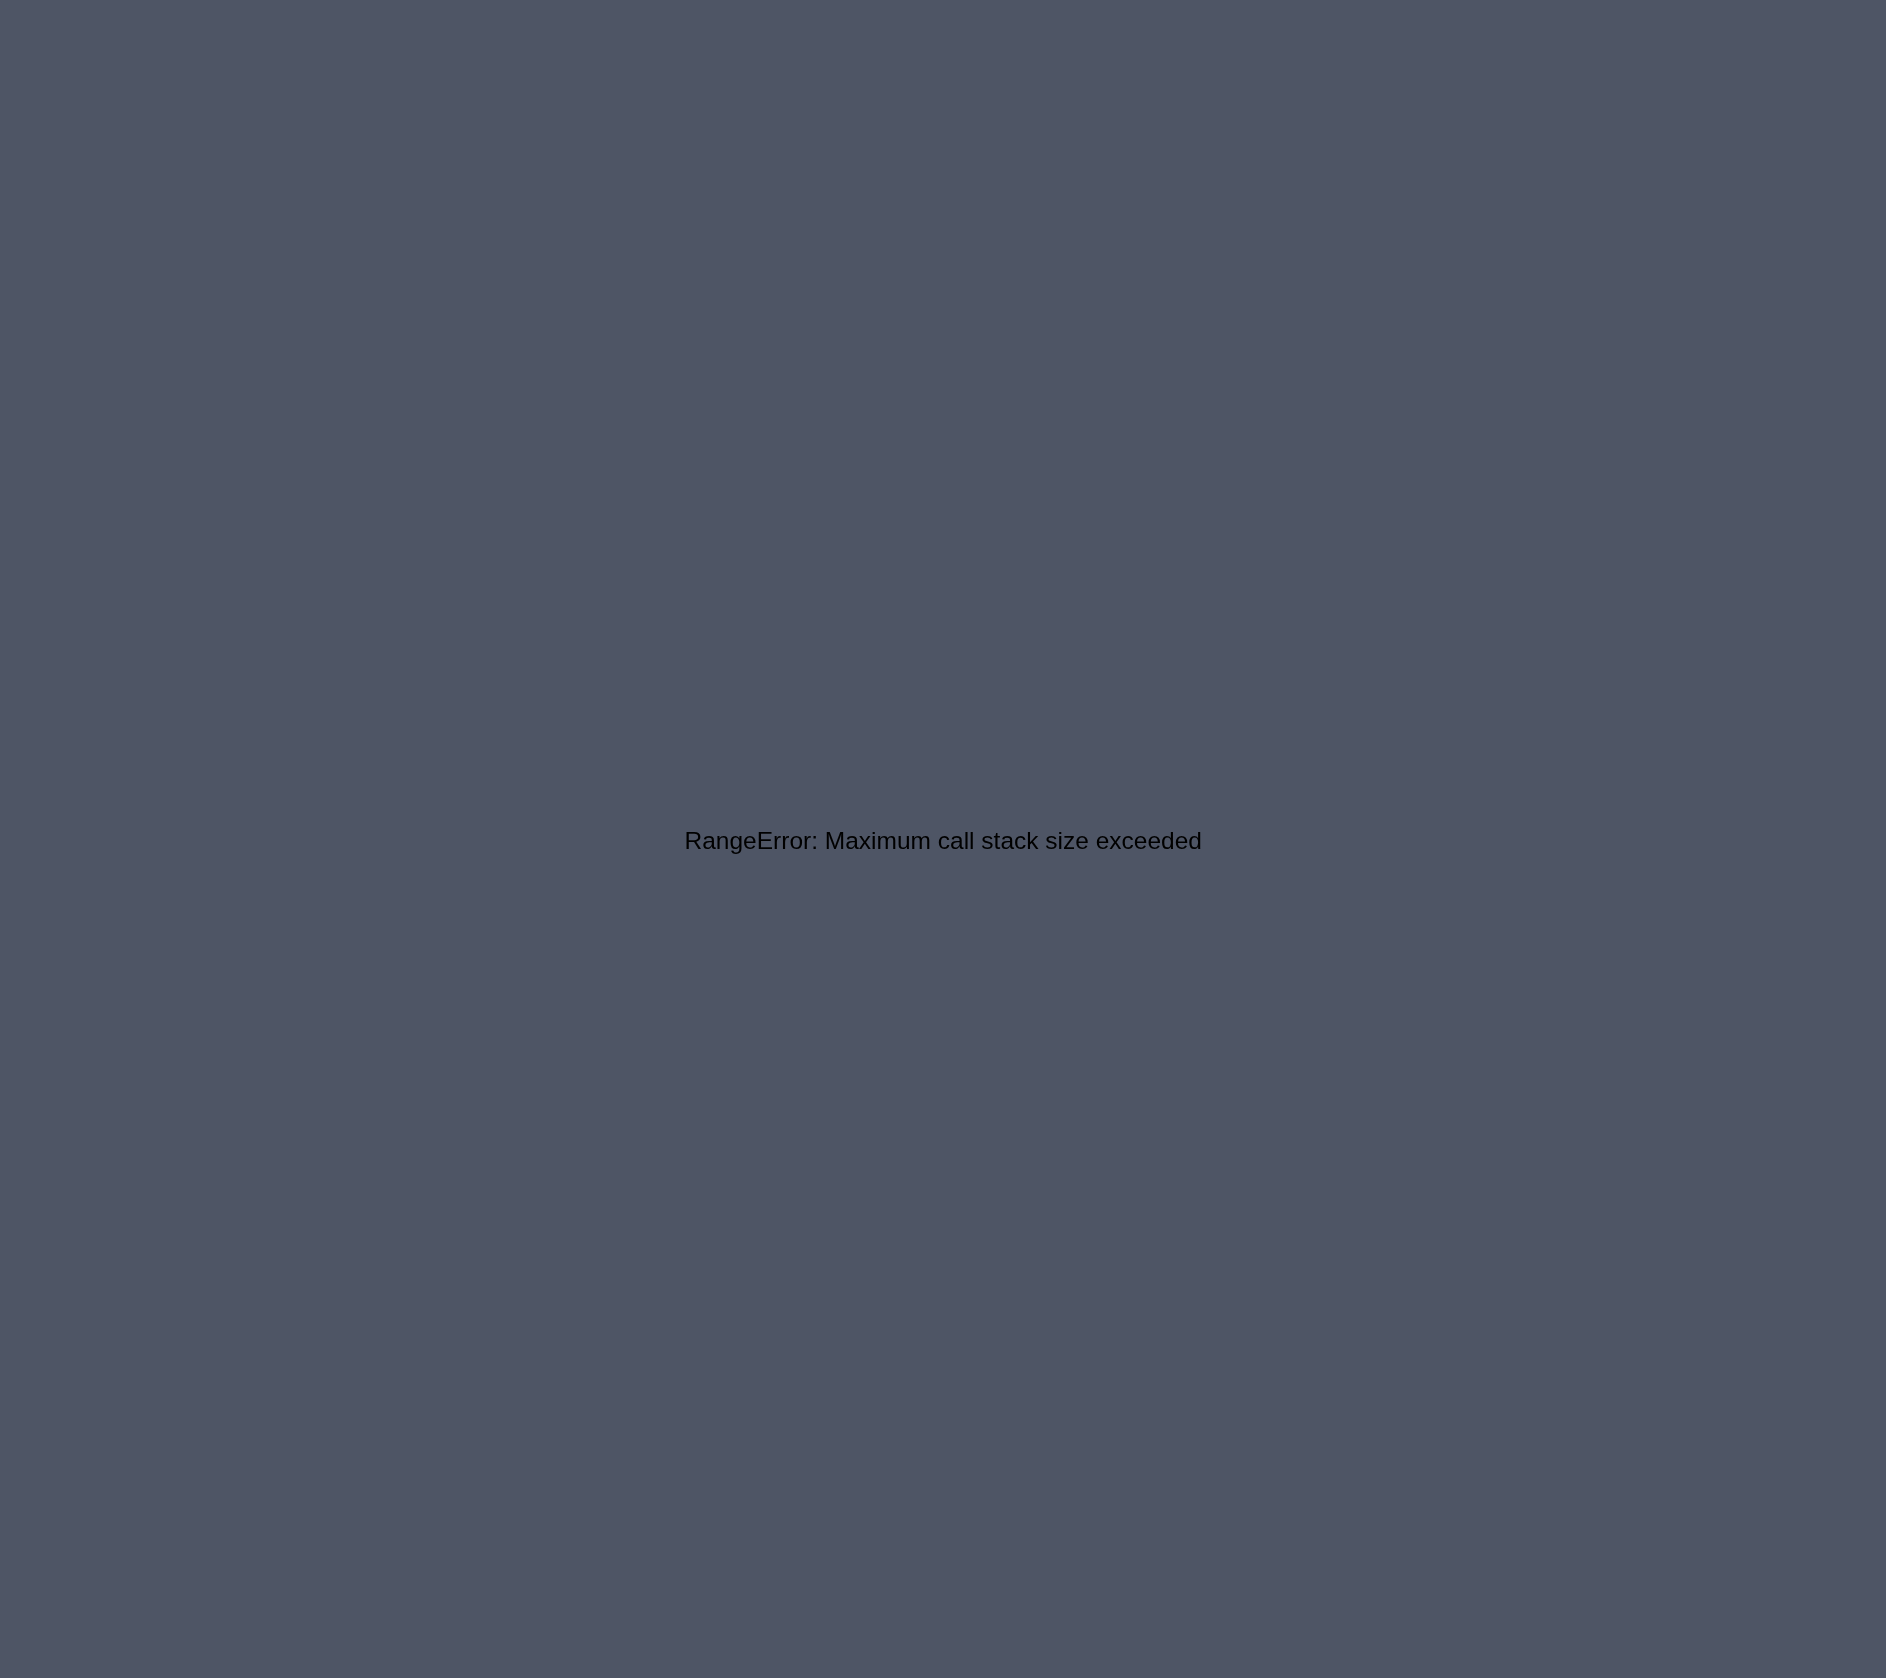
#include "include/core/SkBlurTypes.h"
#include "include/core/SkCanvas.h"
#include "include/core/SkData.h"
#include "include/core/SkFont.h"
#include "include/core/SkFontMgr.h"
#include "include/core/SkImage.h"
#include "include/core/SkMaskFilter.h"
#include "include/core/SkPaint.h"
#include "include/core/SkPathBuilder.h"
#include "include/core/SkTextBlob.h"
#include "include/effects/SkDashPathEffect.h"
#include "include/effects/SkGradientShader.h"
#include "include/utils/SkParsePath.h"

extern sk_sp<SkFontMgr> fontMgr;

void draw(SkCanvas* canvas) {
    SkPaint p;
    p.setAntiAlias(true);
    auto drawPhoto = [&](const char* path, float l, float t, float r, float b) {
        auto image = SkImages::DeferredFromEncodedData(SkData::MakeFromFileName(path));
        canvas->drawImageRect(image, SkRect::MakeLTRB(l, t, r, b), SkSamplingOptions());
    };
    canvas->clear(0xFF4E5565);
    drawPhoto("media/1.png", 686, 832, 1201, 854);
}
